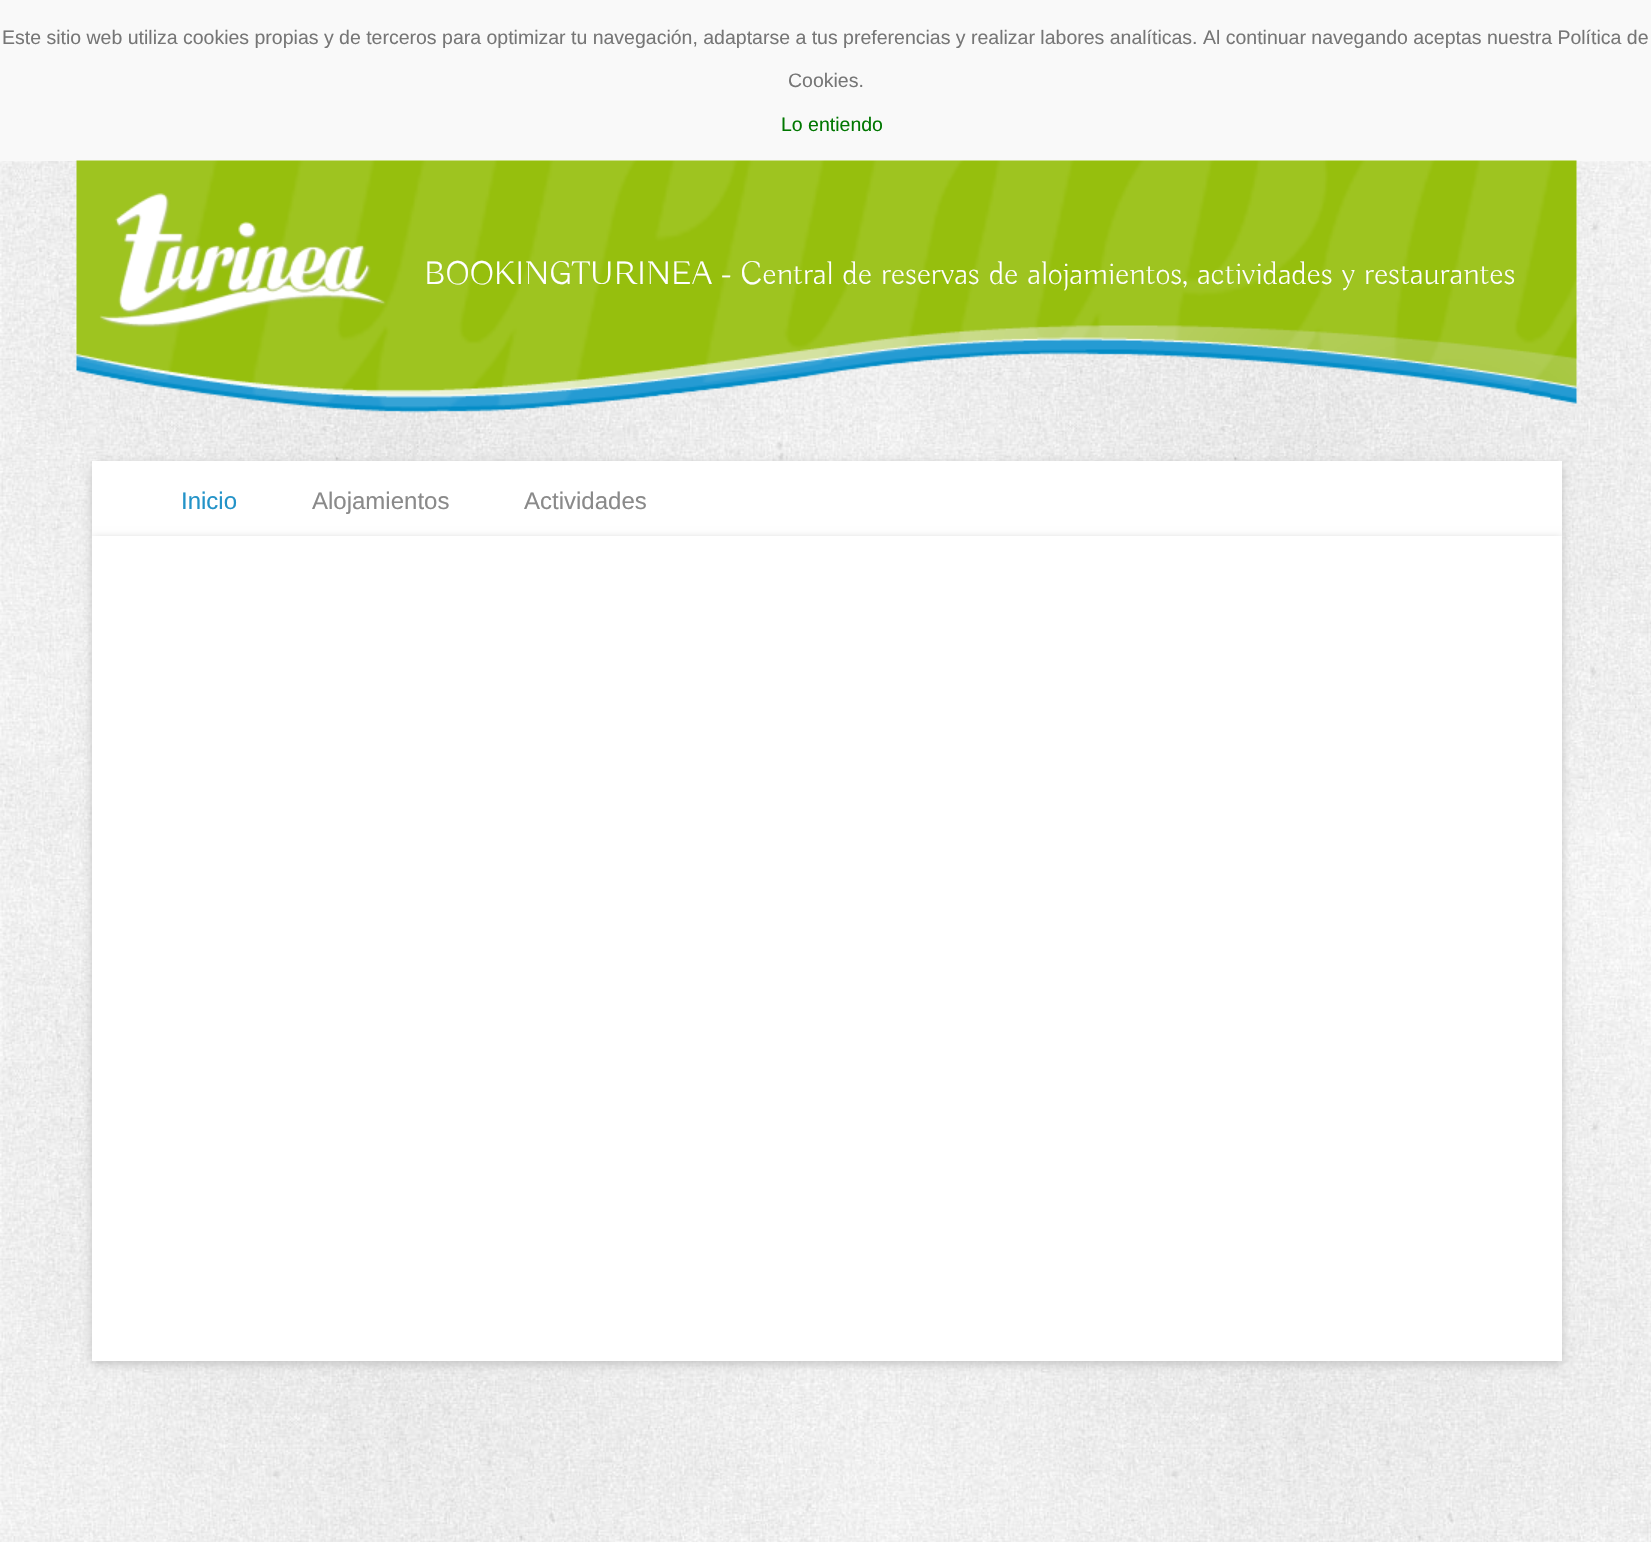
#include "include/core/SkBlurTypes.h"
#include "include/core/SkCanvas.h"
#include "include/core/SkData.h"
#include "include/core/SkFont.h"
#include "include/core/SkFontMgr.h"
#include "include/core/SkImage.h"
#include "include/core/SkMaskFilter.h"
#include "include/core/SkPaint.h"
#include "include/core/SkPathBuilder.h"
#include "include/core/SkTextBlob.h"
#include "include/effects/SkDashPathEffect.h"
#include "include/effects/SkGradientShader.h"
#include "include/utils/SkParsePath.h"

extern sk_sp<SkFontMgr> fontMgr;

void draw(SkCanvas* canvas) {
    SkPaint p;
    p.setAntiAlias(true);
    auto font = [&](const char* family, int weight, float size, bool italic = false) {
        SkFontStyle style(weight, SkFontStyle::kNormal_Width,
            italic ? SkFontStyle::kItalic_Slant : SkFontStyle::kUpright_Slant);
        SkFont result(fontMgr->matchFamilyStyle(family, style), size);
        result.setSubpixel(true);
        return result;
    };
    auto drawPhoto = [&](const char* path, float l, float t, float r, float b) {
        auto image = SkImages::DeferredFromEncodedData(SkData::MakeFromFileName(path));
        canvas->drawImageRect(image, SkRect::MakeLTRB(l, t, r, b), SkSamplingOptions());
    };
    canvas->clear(0xFFFFFFFF);
    drawPhoto("media/1.png", 0, 161, 1651, 1542);
    p.setColor(0xFFF9F9F9);
    canvas->drawRect(SkRect::MakeLTRB(0, 0, 1651, 161), p);
    auto font1 = font("Liberation Sans", 400, 19.5f);
    p.setColor(0xFF767676);
    canvas->drawString("Este sitio web utiliza cookies propias y de terceros para optimizar tu navegación, adaptarse a tus preferencias y realizar labores analíticas. Al continuar navegando aceptas nuestra Política de", 2, 44, font1, p);
    canvas->drawString("Cookies.", 788, 87, font1, p);
    p.setColor(0xFF007700);
    canvas->drawString("Lo entiendo", 781, 131, font1, p);
    drawPhoto("media/2.png", 76, 160, 1577, 413);
    drawPhoto("media/3.png", 99, 193, 386, 328);
    auto font2 = font("Buda", 300, 33);
    p.setColor(0xFFFFFFFF);
    canvas->drawString("BOOKINGTURINEA - Central de reservas de alojamientos, actividades y restaurantes", 424, 284, font2, p);
    p.setColor(0xFFC4C4C4);
    p.setMaskFilter(SkMaskFilter::MakeBlur(kNormal_SkBlurStyle, 4.5f));
    canvas->drawRect(SkRect::MakeLTRB(92, 464, 1562, 539), p);
    p.setMaskFilter(nullptr);
    p.setColor(0xFFFFFFFF);
    canvas->drawRect(SkRect::MakeLTRB(92, 461, 1562, 536), p);
    auto font3 = font("Liberation Sans", 400, 24);
    p.setColor(0xFF2393C8);
    canvas->drawString("Inicio", 181, 509, font3, p);
    p.setColor(0xFF8A8A8A);
    canvas->drawString("Alojamientos", 312, 509, font3, p);
    canvas->drawString("Actividades", 524, 509, font3, p);
    p.setColor(0xFFC4C4C4);
    p.setMaskFilter(SkMaskFilter::MakeBlur(kNormal_SkBlurStyle, 4.5f));
    canvas->drawRect(SkRect::MakeLTRB(92, 539, 1562, 1364), p);
    p.setMaskFilter(nullptr);
    p.setColor(0xFFFFFFFF);
    canvas->drawRect(SkRect::MakeLTRB(92, 536, 1562, 1361), p);
}
